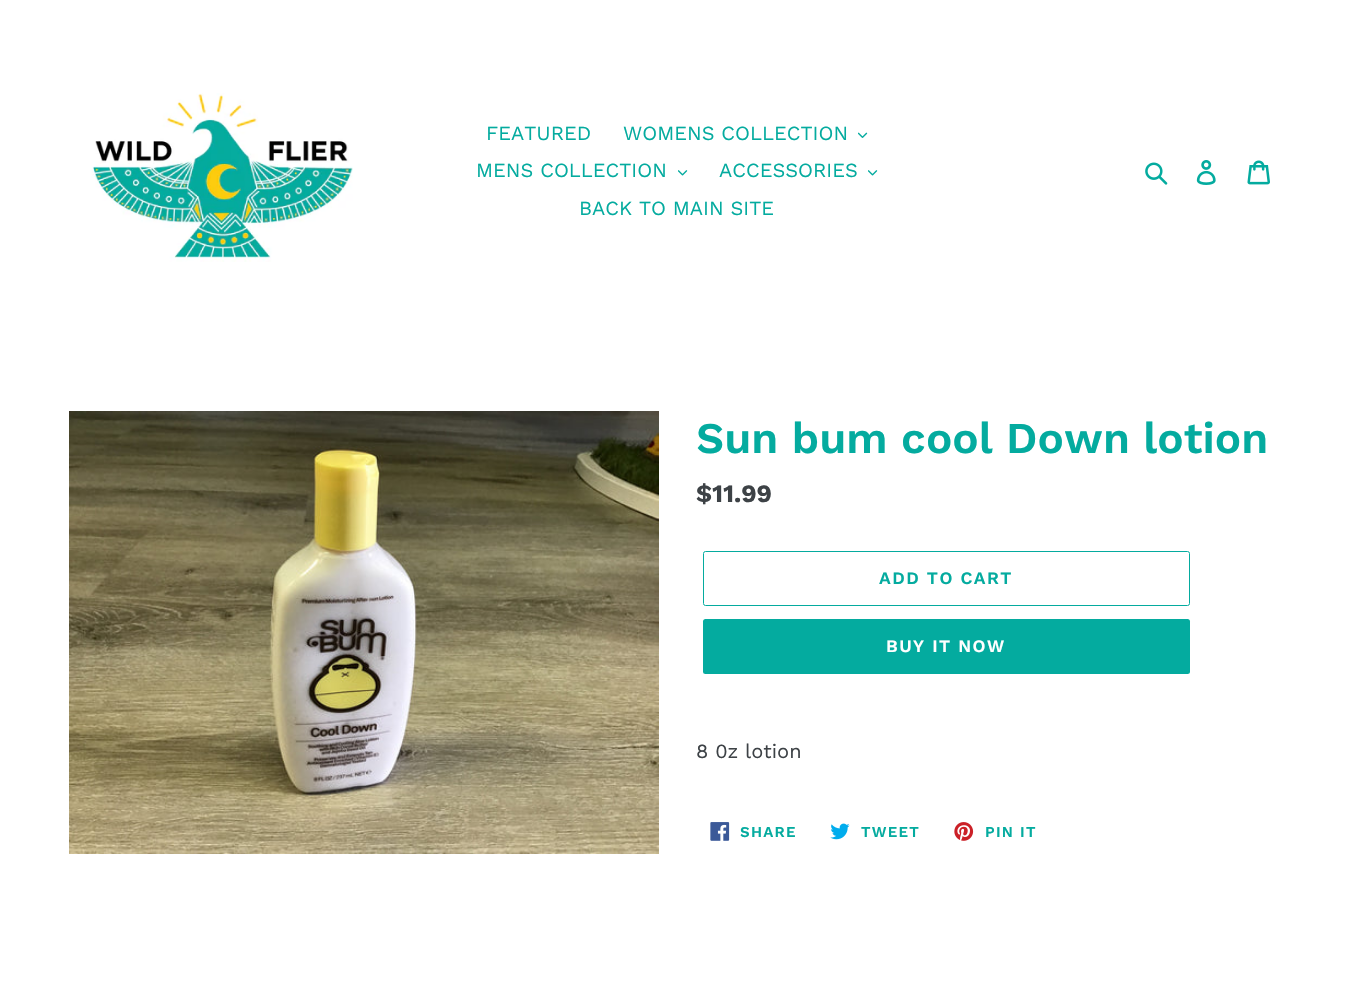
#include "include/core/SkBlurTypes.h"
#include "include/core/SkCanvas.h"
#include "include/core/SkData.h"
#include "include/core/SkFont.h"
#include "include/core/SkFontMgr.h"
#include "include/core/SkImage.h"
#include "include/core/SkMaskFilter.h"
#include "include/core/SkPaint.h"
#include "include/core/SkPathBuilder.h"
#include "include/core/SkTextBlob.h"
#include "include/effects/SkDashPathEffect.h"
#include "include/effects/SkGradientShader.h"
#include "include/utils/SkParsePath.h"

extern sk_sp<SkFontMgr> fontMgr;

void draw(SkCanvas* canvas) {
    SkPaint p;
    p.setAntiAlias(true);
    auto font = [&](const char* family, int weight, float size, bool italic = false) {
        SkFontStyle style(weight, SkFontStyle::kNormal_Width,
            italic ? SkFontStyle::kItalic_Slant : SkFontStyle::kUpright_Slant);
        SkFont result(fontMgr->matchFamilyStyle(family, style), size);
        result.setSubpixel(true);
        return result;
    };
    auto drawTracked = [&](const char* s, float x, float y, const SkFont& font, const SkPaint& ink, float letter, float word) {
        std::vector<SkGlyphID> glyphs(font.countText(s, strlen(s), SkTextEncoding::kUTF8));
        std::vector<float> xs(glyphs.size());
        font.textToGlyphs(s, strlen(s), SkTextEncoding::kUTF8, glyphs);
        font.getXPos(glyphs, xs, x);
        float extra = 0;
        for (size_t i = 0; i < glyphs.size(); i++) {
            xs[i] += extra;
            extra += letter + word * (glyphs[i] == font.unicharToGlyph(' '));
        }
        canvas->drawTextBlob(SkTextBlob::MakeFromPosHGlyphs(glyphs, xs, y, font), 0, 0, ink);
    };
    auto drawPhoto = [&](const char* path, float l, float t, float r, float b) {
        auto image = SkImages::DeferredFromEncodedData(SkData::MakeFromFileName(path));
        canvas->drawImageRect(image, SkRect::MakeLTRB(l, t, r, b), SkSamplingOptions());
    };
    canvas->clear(0xFFFFFFFF);
    drawPhoto("media/1.png", 91, 93, 353, 262);
    auto font1 = font("Work Sans", 400, 20);
    p.setColor(0xFF04AB9F);
    canvas->drawString("FEATURED", 486, 140, font1, p);
    canvas->drawString("WOMENS COLLECTION", 623, 140, font1, p);
    drawPhoto("media/2.png", 858, 132, 868, 138);
    canvas->drawString("MENS COLLECTION", 476, 177, font1, p);
    drawPhoto("media/3.png", 678, 170, 688, 176);
    canvas->drawString("ACCESSORIES", 719, 177, font1, p);
    drawPhoto("media/3.png", 868, 170, 878, 176);
    canvas->drawString("BACK TO MAIN SITE", 579, 215, font1, p);
    drawPhoto("media/4.png", 1145, 162, 1168, 185);
    drawPhoto("media/5.png", 1196, 160, 1216, 185);
    drawPhoto("media/6.png", 1247, 160, 1270, 185);
    drawPhoto("media/7.png", 69, 411, 659, 854);
    auto font2 = font("Work Sans", 600, 43.75f);
    canvas->drawString("Sun bum cool Down lotion", 696, 453, font2, p);
    auto font3 = font("Work Sans", 700, 25);
    p.setColor(0xFF3D4246);
    canvas->drawString("$11.99", 696, 502, font3, p);
    p.setStyle(SkPaint::kStroke_Style);
    p.setStrokeWidth(1);
    p.setColor(0xFF04AB9F);
    canvas->drawRoundRect(SkRect::MakeLTRB(703.5f, 551.5f, 1189.5f, 605.5f), 2, 2, p);
    auto font4 = font("Work Sans", 600, 17.5f);
    p.setStyle(SkPaint::kFill_Style);
    drawTracked("ADD TO CART", 879, 584, font4, p, 1.4f, 0);
    canvas->drawRoundRect(SkRect::MakeLTRB(703, 619, 1190, 674), 2.5f, 2.5f, p);
    p.setColor(0xFFFFFFFF);
    drawTracked("BUY IT NOW", 886, 652, font4, p, 1.4f, 0);
    p.setColor(0xFF3D4246);
    canvas->drawString("8 0z lotion", 696, 758, font1, p);
    drawPhoto("media/8.png", 710, 822, 730, 841);
    auto font5 = font("Work Sans", 600, 15);
    p.setColor(0xFF04AB9F);
    drawTracked("SHARE", 740, 837, font5, p, 1.25f, 0);
    drawPhoto("media/9.png", 830, 823, 850, 840);
    drawTracked("TWEET", 861, 837, font5, p, 1.25f, 0);
    drawPhoto("media/10.png", 954, 822, 974, 841);
    drawTracked("PIN IT", 985, 837, font5, p, 1.25f, 0);
}
